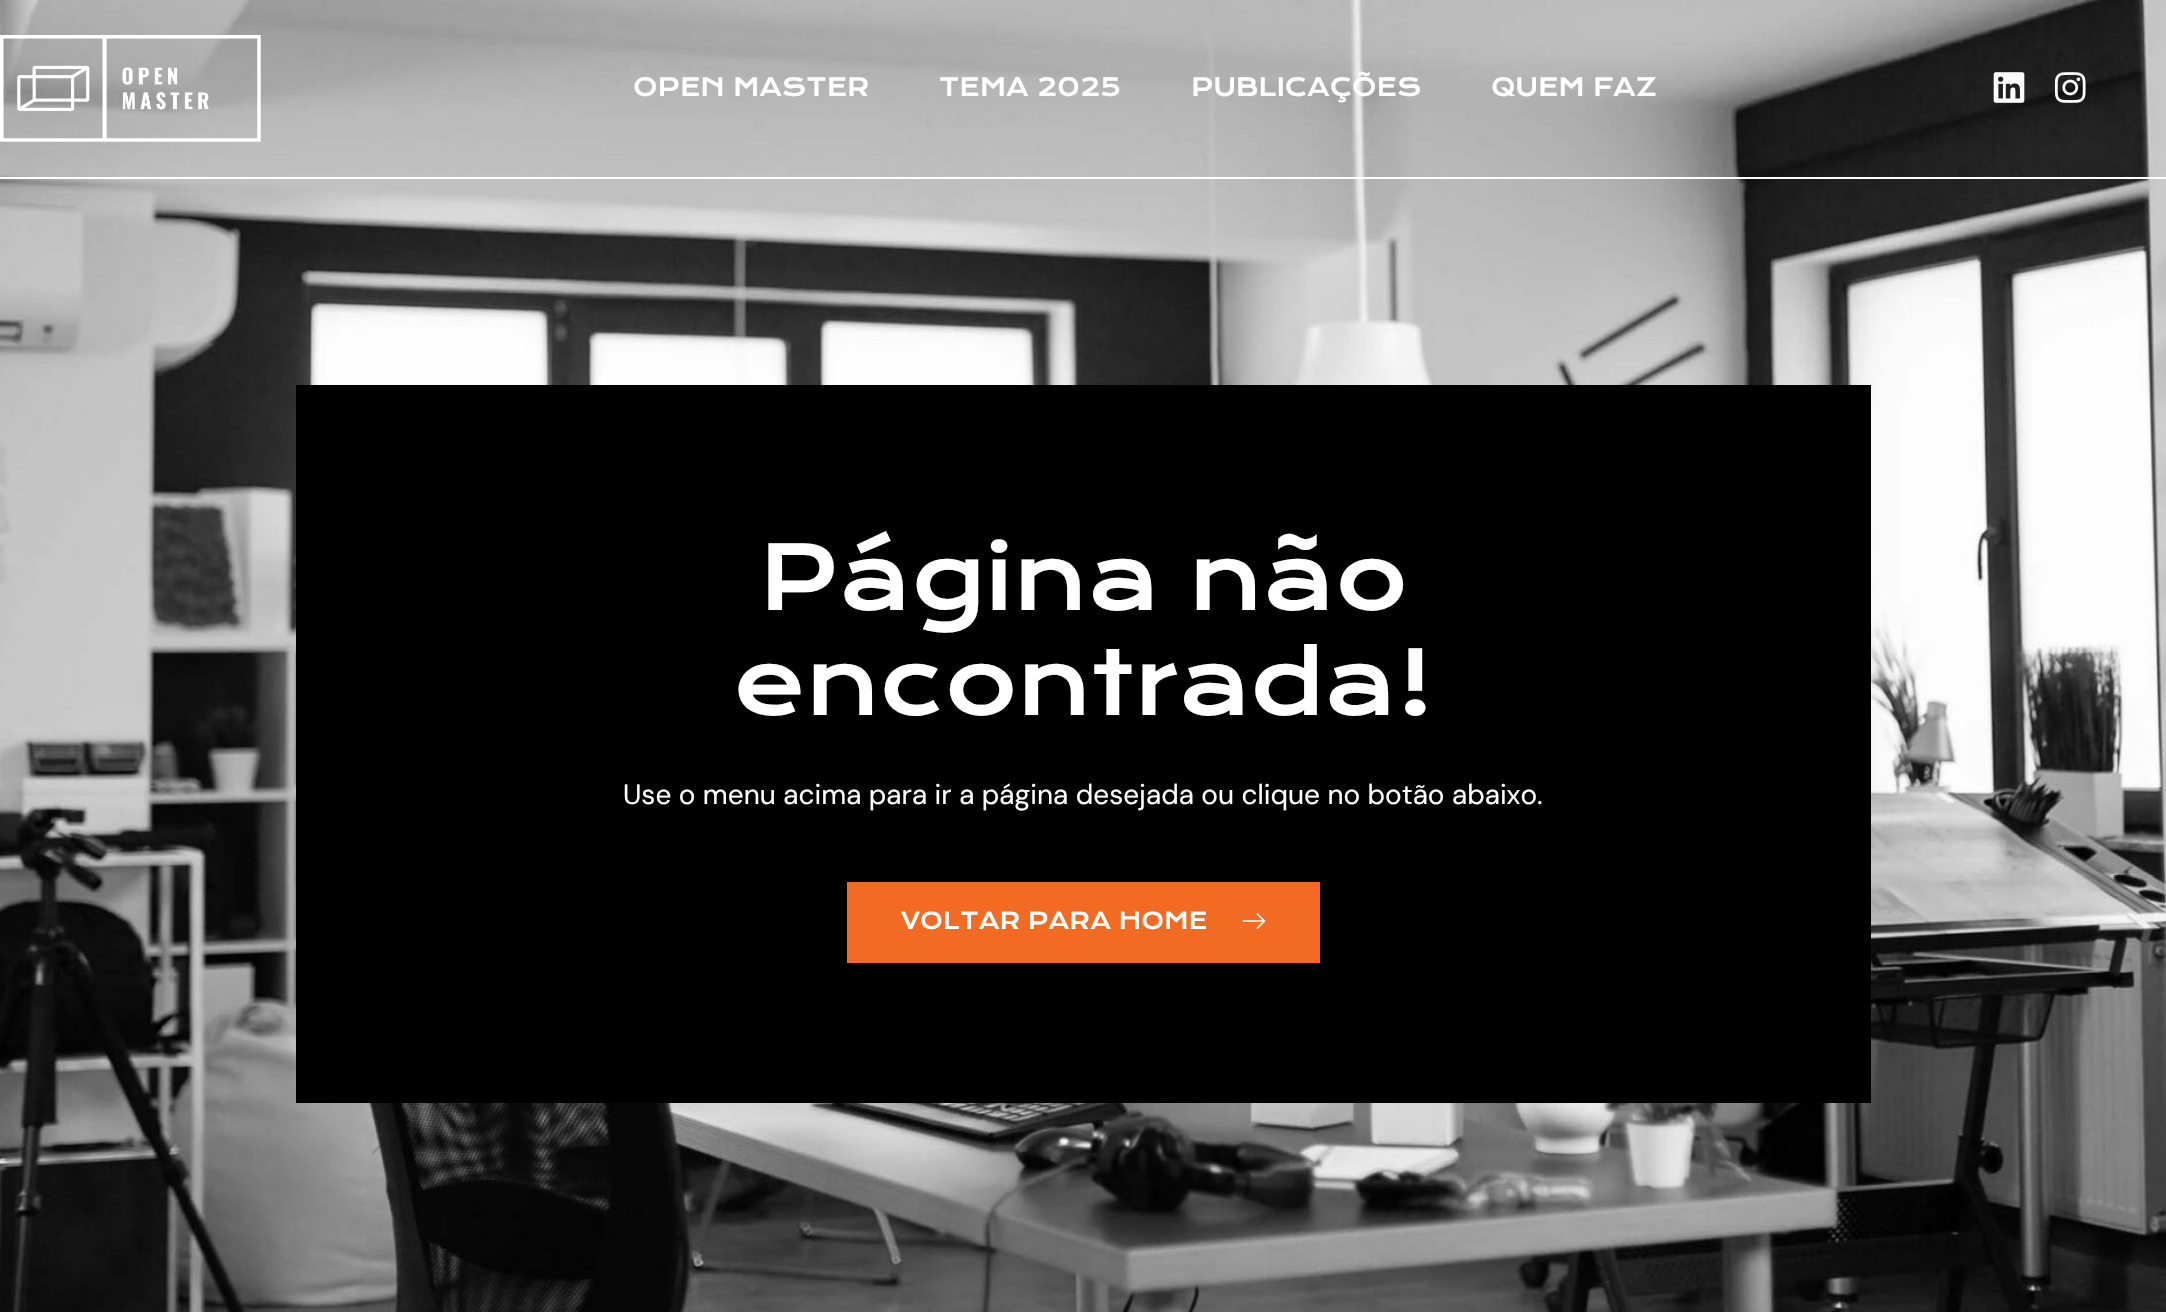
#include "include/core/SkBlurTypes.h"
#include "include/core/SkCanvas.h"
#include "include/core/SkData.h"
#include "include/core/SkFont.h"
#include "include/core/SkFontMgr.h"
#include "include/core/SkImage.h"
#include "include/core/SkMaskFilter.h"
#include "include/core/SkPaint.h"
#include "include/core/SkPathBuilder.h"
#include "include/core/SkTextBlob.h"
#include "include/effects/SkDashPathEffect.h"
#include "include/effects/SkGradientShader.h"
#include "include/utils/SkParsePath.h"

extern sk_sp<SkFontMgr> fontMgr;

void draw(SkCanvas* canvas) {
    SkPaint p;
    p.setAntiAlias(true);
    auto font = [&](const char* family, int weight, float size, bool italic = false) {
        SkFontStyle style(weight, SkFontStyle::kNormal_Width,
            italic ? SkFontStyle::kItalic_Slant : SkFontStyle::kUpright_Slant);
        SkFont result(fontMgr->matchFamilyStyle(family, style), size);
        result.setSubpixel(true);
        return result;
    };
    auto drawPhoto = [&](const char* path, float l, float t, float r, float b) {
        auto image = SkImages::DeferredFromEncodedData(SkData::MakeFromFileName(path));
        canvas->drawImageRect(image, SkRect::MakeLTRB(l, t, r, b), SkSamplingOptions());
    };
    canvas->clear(0xFFFFFFFF);
    drawPhoto("media/4.png", 0, 0, 2166, 1312);
    p.setColor(0xFFFFFFFF);
    canvas->drawRect(SkRect::MakeLTRB(0, 177, 2166, 179), p);
    drawPhoto("media/1.png", 0, 35, 261, 142);
    auto font1 = font("Krona One", 400, 24.5f);
    {
        const struct { const char* s; float x, y; } items[] = {
            {"OPEN MASTER", 633, 96},
            {"TEMA 2025", 939, 96},
            {"PUBLICAÇÕES", 1191, 96},
            {"QUEM FAZ", 1491, 96},
        };
        for (auto [s, x, y] : items) {
            canvas->drawString(s, x, y, font1, p);
        }
    }
    drawPhoto("media/2.png", 1993, 72, 2025, 103);
    drawPhoto("media/3.png", 2054, 72, 2086, 103);
    p.setColor(0xFF000000);
    canvas->drawRect(SkRect::MakeLTRB(296, 385, 1871, 1103), p);
    auto font2 = font("Krona One", 400, 87.5f);
    p.setColor(0xFFFFFFFF);
    canvas->drawString("Página não", 759, 610, font2, p);
    canvas->drawString("encontrada!", 733, 715, font2, p);
    auto font3 = font("DM Sans", 400, 28);
    canvas->drawString("Use o menu acima para ir a página desejada ou clique no botão abaixo.", 623, 804, font3, p);
    p.setColor(0xFFF36B22);
    canvas->drawRect(SkRect::MakeLTRB(847, 882, 1320, 963), p);
    auto font4 = font("Krona One", 400, 22.75f);
    p.setColor(0xFFFFFFFF);
    canvas->drawString("VOLTAR PARA HOME", 901, 929, font4, p);
    drawPhoto("media/5.png", 1242, 913, 1266, 929);
}
